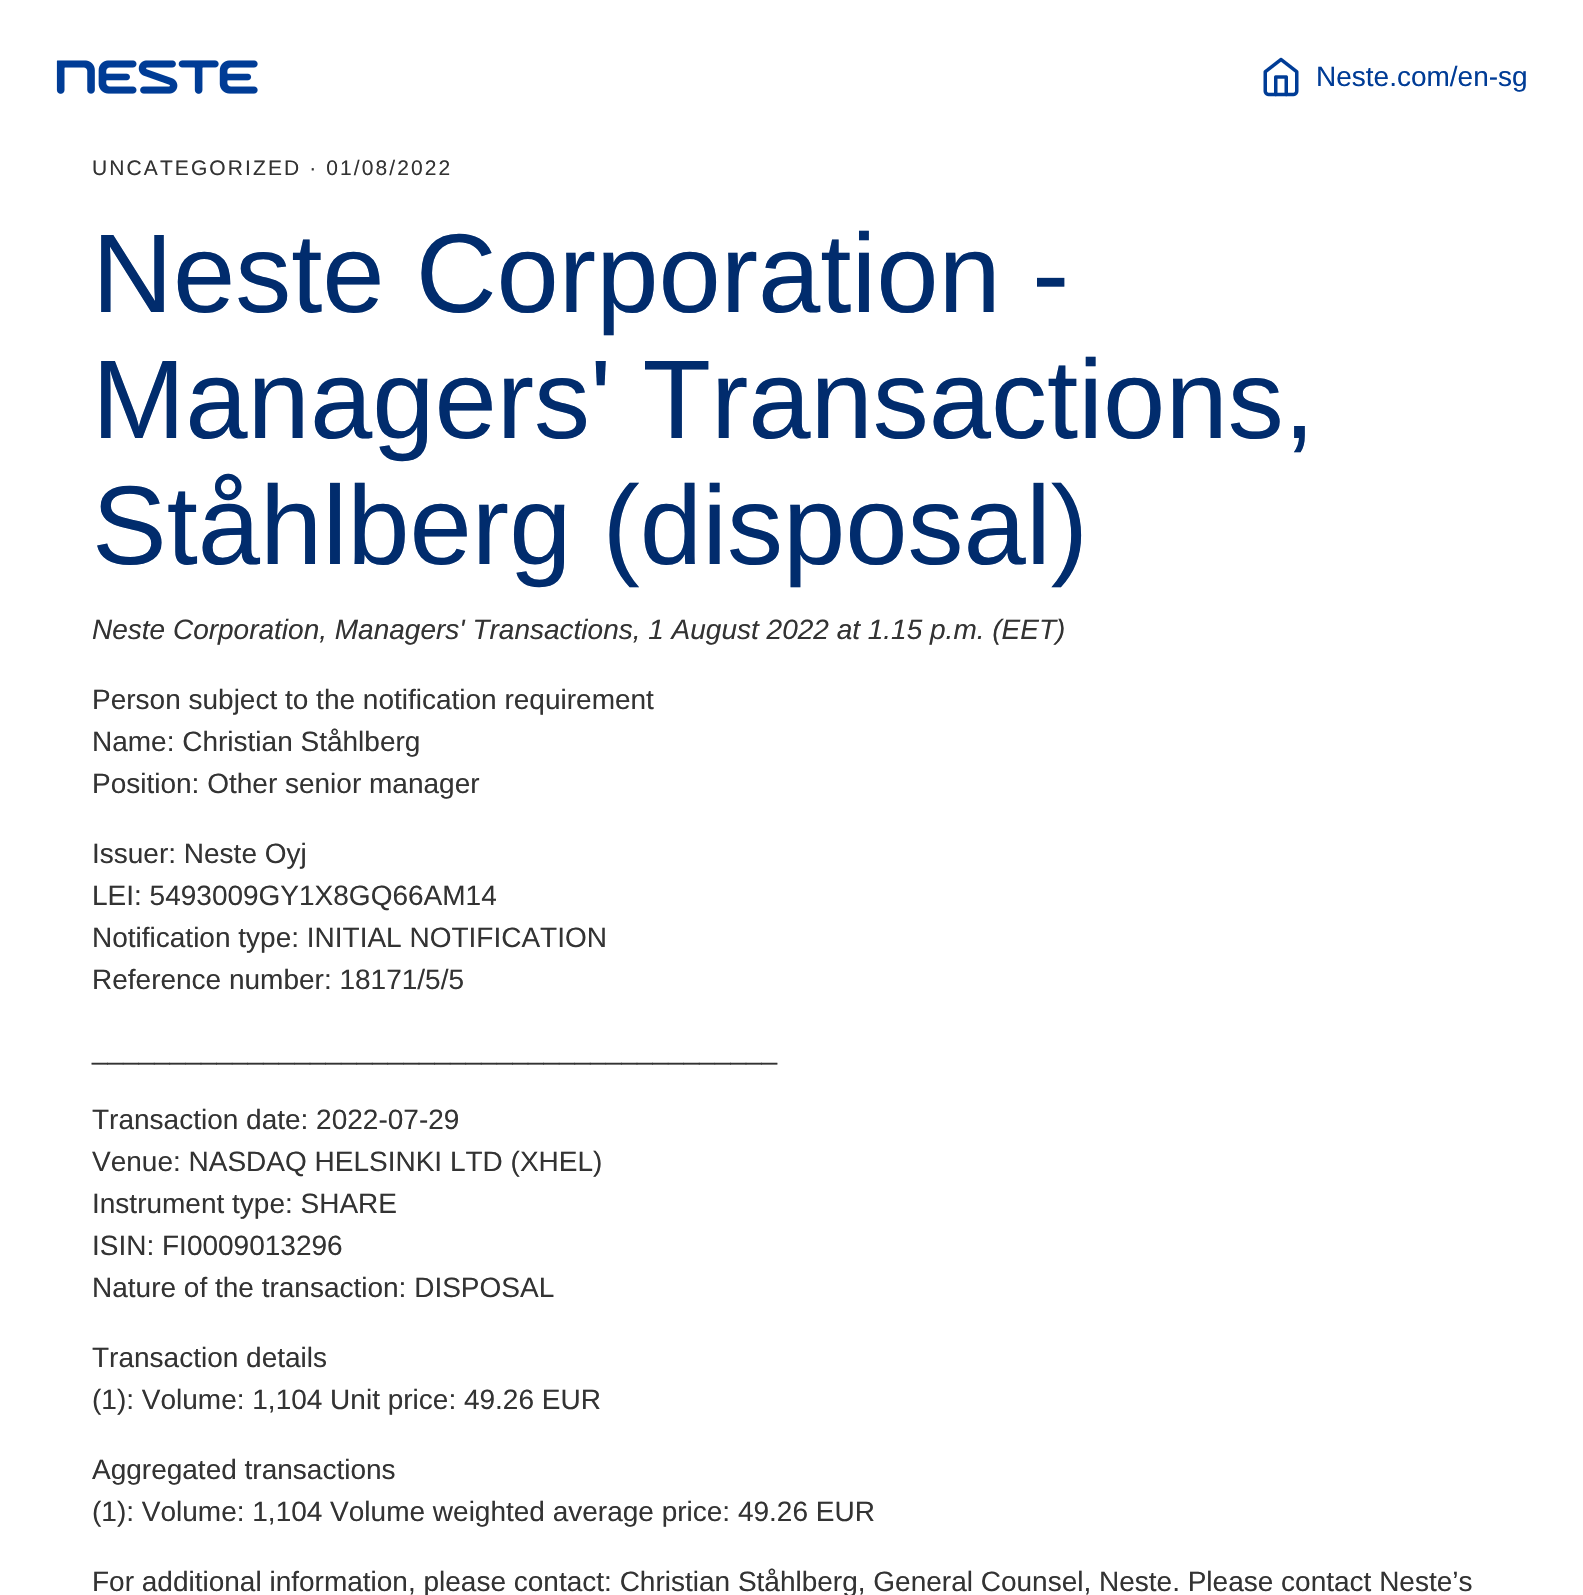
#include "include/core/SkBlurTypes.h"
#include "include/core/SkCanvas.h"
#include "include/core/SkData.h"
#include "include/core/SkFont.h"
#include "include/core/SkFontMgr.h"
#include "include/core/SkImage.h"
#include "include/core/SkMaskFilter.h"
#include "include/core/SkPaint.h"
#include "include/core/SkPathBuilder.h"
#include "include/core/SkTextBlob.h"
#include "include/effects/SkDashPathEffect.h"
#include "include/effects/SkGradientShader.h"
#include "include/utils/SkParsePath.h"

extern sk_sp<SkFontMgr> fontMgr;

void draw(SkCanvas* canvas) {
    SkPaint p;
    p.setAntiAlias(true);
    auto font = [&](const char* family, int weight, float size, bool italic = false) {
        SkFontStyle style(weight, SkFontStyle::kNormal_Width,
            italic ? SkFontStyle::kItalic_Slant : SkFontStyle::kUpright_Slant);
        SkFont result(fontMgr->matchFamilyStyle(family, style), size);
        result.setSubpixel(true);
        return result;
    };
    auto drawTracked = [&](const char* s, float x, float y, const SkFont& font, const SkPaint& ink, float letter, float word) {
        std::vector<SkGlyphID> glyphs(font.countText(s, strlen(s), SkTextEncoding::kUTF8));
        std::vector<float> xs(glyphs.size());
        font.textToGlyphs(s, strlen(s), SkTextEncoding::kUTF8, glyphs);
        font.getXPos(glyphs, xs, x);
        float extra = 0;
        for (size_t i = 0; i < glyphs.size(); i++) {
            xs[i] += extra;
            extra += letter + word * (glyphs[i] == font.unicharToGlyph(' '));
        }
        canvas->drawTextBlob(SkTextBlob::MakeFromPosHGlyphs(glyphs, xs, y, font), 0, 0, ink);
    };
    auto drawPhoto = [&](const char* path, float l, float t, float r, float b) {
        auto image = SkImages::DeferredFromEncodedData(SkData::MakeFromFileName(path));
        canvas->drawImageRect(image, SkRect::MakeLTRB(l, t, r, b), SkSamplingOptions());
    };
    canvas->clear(0xFFFFFFFF);
    drawPhoto("media/1.png", 56, 60, 258, 94);
    drawPhoto("media/2.png", 1263, 57, 1299, 97);
    auto font1 = font("Liberation Sans", 400, 28);
    p.setColor(0xFF003C96);
    canvas->drawString("Neste.com/en-sg", 1316, 86, font1, p);
    auto font2 = font("Liberation Sans", 400, 21);
    p.setColor(0xFF333333);
    drawTracked("UNCATEGORIZED · 01/08/2022", 92, 175, font2, p, 2.1f, 0);
    auto font3 = font("Liberation Sans", 400, 112);
    p.setColor(0xFF012C6D);
    {
        const struct { const char* s; float x, y; } items[] = {
            {"Neste Corporation -", 92, 312},
            {"Managers' Transactions,", 92, 438},
            {"Ståhlberg (disposal)", 92, 564},
        };
        for (auto [s, x, y] : items) {
            canvas->drawString(s, x, y, font3, p);
        }
    }
    auto font4 = font("Liberation Sans", 400, 28, true);
    p.setColor(0xFF333333);
    canvas->drawString("Neste Corporation, Managers' Transactions, 1 August 2022 at 1.15 p.m. (EET)", 92, 639, font4, p);
    {
        const struct { const char* s; float x, y; } items[] = {
            {"Person subject to the notification requirement", 92, 709},
            {"Name: Christian Ståhlberg", 92, 751},
            {"Position: Other senior manager", 92, 793},
            {"Issuer: Neste Oyj", 92, 863},
            {"LEI: 5493009GY1X8GQ66AM14", 92, 905},
            {"Notification type: INITIAL NOTIFICATION", 92, 947},
            {"Reference number: 18171/5/5", 92, 989},
            {"____________________________________________", 92, 1059},
            {"Transaction date: 2022-07-29", 92, 1129},
            {"Venue: NASDAQ HELSINKI LTD (XHEL)", 92, 1171},
            {"Instrument type: SHARE", 92, 1213},
            {"ISIN: FI0009013296", 92, 1255},
            {"Nature of the transaction: DISPOSAL", 92, 1297},
            {"Transaction details", 92, 1367},
            {"(1): Volume: 1,104 Unit price: 49.26 EUR", 92, 1409},
            {"Aggregated transactions", 92, 1479},
            {"(1): Volume: 1,104 Volume weighted average price: 49.26 EUR", 92, 1521},
            {"For additional information, please contact: Christian Ståhlberg, General Counsel, Neste. Please contact Neste’s", 92, 1591},
        };
        for (auto [s, x, y] : items) {
            canvas->drawString(s, x, y, font1, p);
        }
    }
}
